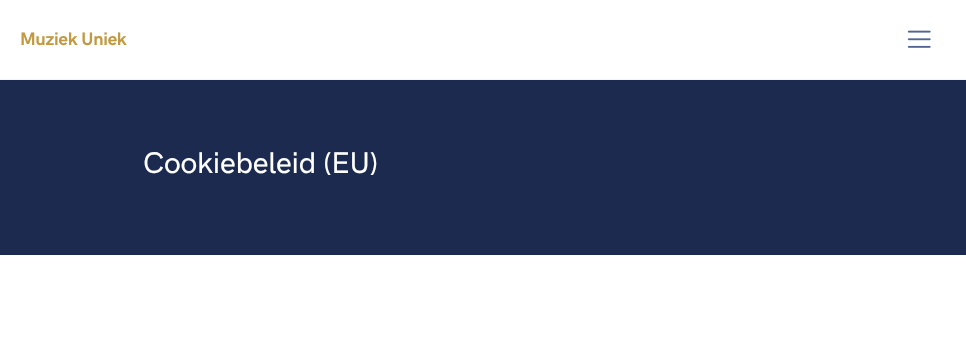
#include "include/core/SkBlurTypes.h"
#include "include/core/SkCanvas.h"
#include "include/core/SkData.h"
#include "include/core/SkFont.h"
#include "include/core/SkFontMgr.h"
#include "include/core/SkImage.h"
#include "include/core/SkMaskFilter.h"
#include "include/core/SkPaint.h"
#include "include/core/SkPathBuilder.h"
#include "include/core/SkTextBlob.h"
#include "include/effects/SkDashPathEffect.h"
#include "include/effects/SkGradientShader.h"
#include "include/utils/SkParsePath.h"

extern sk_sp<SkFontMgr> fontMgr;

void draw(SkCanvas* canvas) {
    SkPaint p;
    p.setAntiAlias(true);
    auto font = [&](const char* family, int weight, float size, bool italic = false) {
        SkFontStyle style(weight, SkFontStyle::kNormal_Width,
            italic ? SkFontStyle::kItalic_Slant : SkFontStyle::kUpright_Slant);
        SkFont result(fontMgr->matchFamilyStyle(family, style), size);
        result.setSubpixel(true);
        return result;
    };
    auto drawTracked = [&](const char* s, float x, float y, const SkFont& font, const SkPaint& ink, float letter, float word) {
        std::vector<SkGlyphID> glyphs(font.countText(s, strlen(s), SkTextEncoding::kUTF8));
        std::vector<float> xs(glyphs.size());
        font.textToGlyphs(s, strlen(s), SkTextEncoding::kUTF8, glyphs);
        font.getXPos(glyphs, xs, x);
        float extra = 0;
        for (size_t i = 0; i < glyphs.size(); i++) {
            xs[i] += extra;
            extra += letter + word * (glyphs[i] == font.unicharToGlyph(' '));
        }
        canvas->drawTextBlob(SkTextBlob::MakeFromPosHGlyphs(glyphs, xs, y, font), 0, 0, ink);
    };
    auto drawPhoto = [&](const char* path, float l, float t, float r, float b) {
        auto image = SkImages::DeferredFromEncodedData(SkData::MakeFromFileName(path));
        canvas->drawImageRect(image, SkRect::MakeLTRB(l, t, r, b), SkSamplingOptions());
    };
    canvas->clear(0xFFFFFFFF);
    p.setColor(0xFFF1F4F8);
    canvas->drawRect(SkRect::MakeLTRB(0, 79, 966, 80), p);
    auto font1 = font("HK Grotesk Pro", 700, 18);
    p.setColor(0xFFC29941);
    drawTracked("Muziek Uniek", 20, 45, font1, p, -0.25f, 0);
    drawPhoto("media/1.png", 907, 30, 931, 48);
    p.setColor(0xFF1B2A4E);
    canvas->drawRect(SkRect::MakeLTRB(0, 80, 966, 255), p);
    auto font2 = font("HK Grotesk Pro", 500, 30);
    p.setColor(0xFFFFFFFF);
    drawTracked("Cookiebeleid (EU)", 143, 173, font2, p, -0.25f, 0);
}
